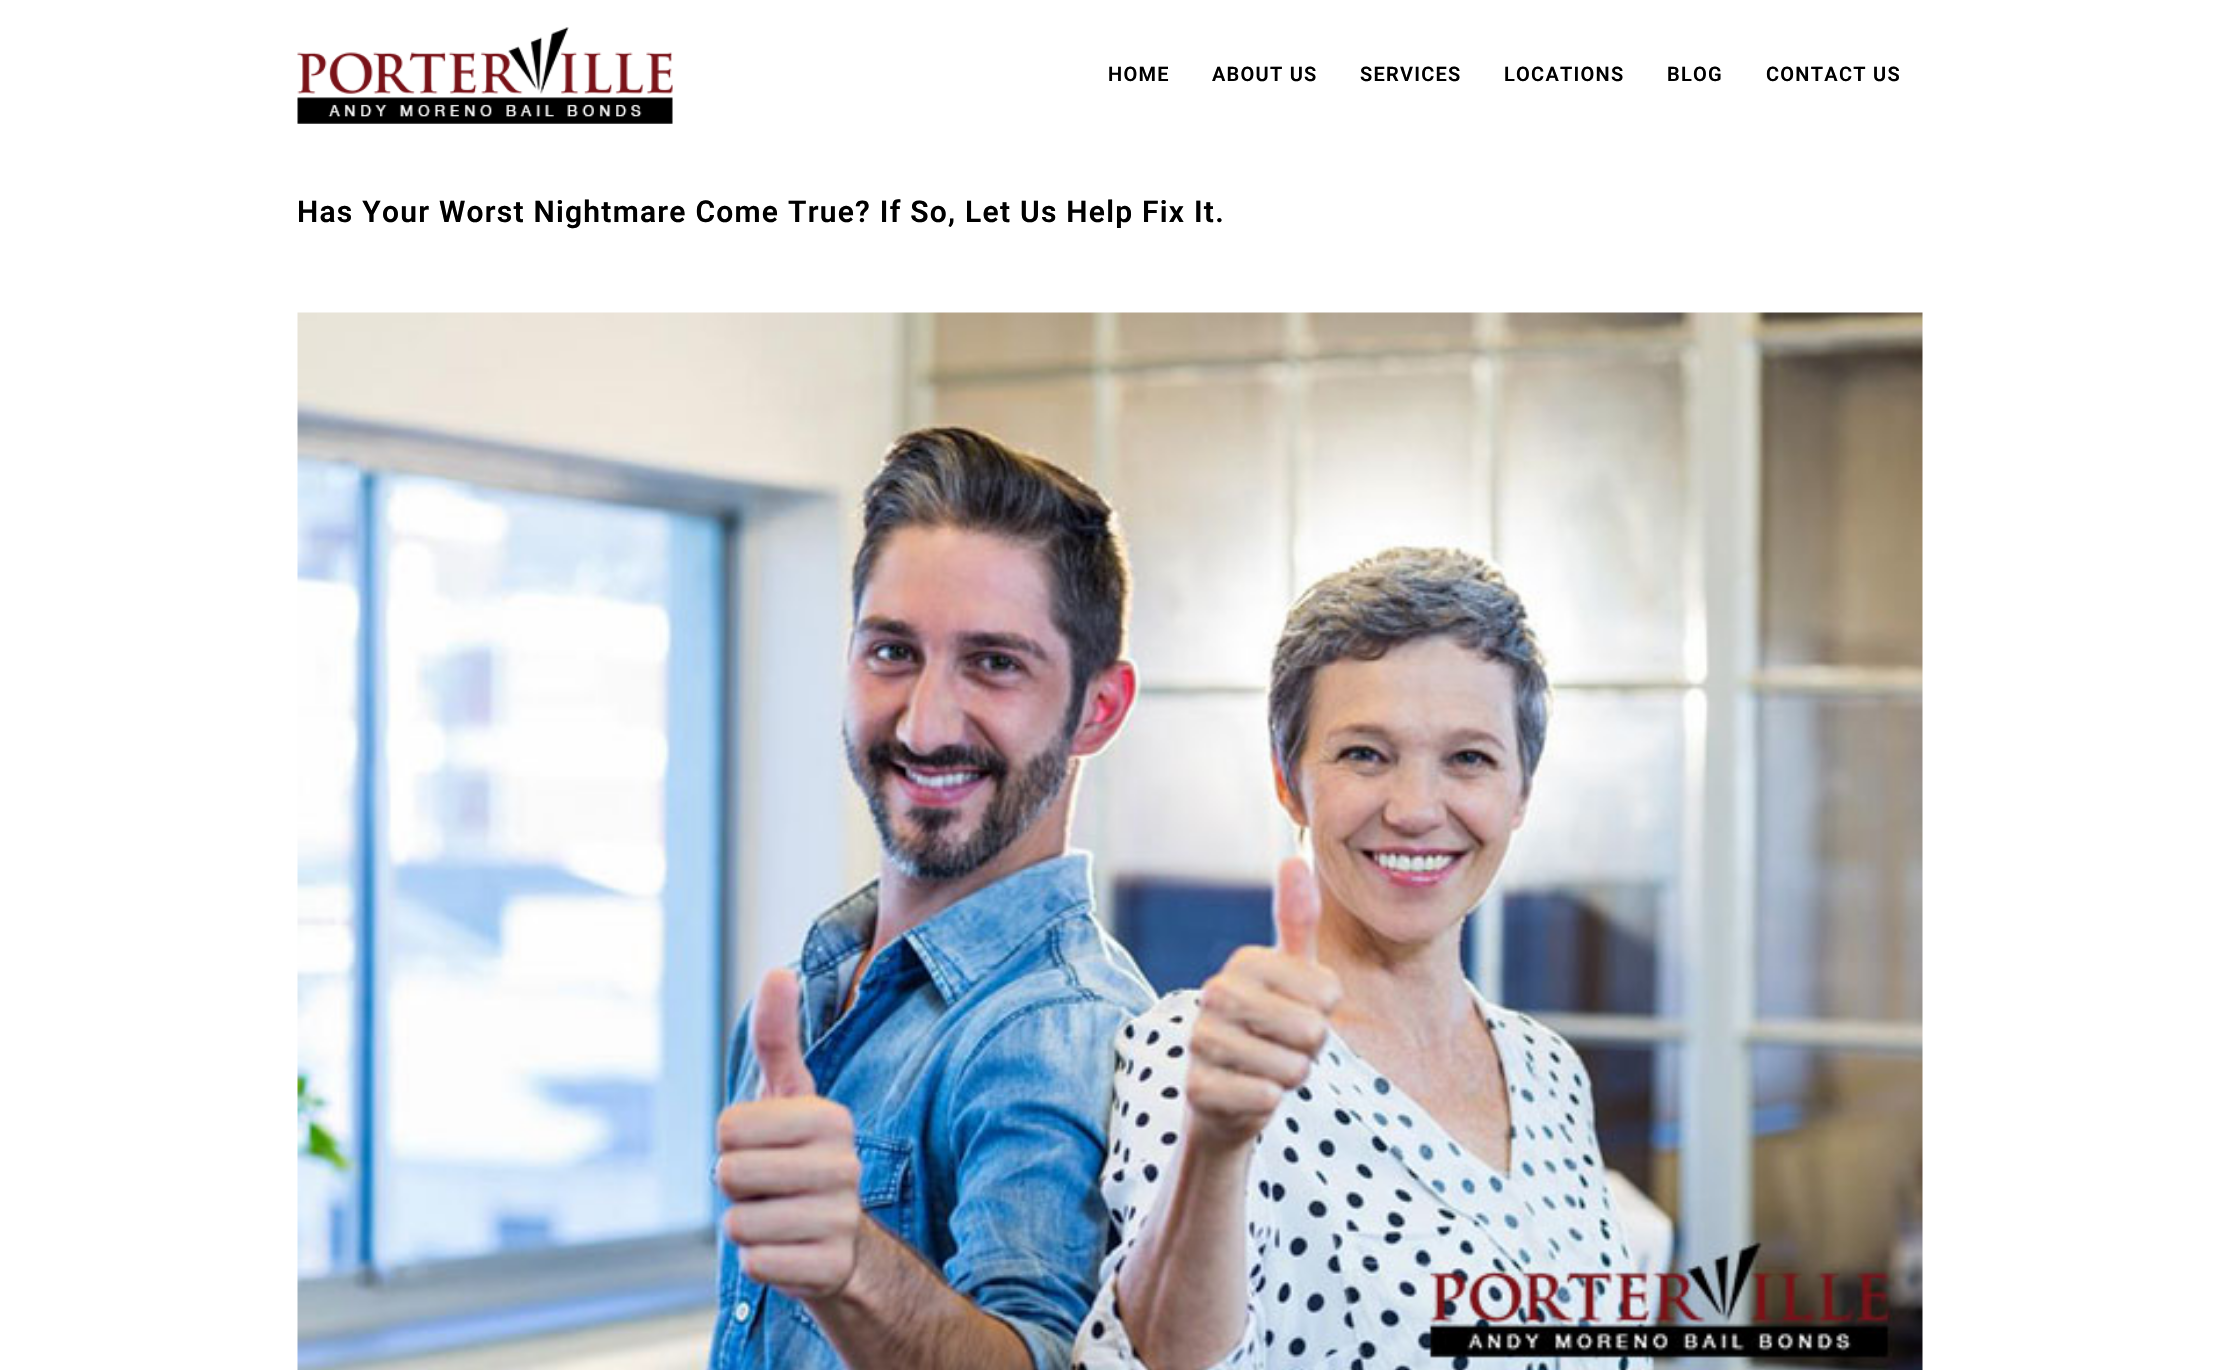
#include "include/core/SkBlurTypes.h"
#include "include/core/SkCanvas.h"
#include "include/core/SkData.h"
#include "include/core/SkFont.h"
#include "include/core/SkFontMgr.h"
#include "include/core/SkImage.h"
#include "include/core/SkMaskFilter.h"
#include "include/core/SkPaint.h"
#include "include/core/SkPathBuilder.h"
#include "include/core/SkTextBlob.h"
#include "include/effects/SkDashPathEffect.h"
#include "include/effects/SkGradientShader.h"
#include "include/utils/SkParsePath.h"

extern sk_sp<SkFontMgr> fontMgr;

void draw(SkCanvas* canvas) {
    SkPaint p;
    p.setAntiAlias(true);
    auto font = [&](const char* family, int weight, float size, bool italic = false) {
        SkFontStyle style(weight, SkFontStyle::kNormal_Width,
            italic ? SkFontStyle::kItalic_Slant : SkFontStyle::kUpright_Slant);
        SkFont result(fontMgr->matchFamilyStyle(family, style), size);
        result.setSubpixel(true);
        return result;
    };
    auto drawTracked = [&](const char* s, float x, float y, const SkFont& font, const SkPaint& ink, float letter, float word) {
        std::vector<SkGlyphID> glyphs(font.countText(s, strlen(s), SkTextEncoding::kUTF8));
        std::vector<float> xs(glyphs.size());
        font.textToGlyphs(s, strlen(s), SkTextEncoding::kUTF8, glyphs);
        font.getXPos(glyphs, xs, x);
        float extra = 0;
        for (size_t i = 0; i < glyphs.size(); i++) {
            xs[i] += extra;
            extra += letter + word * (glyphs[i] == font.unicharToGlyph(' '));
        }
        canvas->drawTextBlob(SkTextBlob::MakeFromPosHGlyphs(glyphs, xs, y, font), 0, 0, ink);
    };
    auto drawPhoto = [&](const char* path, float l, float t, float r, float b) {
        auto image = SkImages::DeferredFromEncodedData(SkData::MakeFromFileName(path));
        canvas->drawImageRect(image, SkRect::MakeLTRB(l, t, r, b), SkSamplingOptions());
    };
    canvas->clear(0xFFFFFFFF);
    drawPhoto("media/1.png", 297, 27, 673, 124);
    auto font1 = font("Roboto", 600, 20);
    p.setColor(0xFF000000);
    {
        const struct { const char* s; float x, y; } items[] = {
            {"HOME", 1108, 81},
            {"ABOUT US", 1212, 81},
            {"SERVICES", 1360, 81},
            {"LOCATIONS", 1504, 81},
            {"BLOG", 1667, 81},
            {"CONTACT US", 1766, 81},
        };
        for (auto [s, x, y] : items) {
            drawTracked(s, x, y, font1, p, 1.25f, 0);
        }
    }
    auto font2 = font("Roboto", 600, 30);
    drawTracked("Has Your Worst Nightmare Come True? If So, Let Us Help Fix It.", 297, 222, font2, p, 1.25f, 0);
    drawPhoto("media/2.png", 297, 312, 1923, 1370);
}
